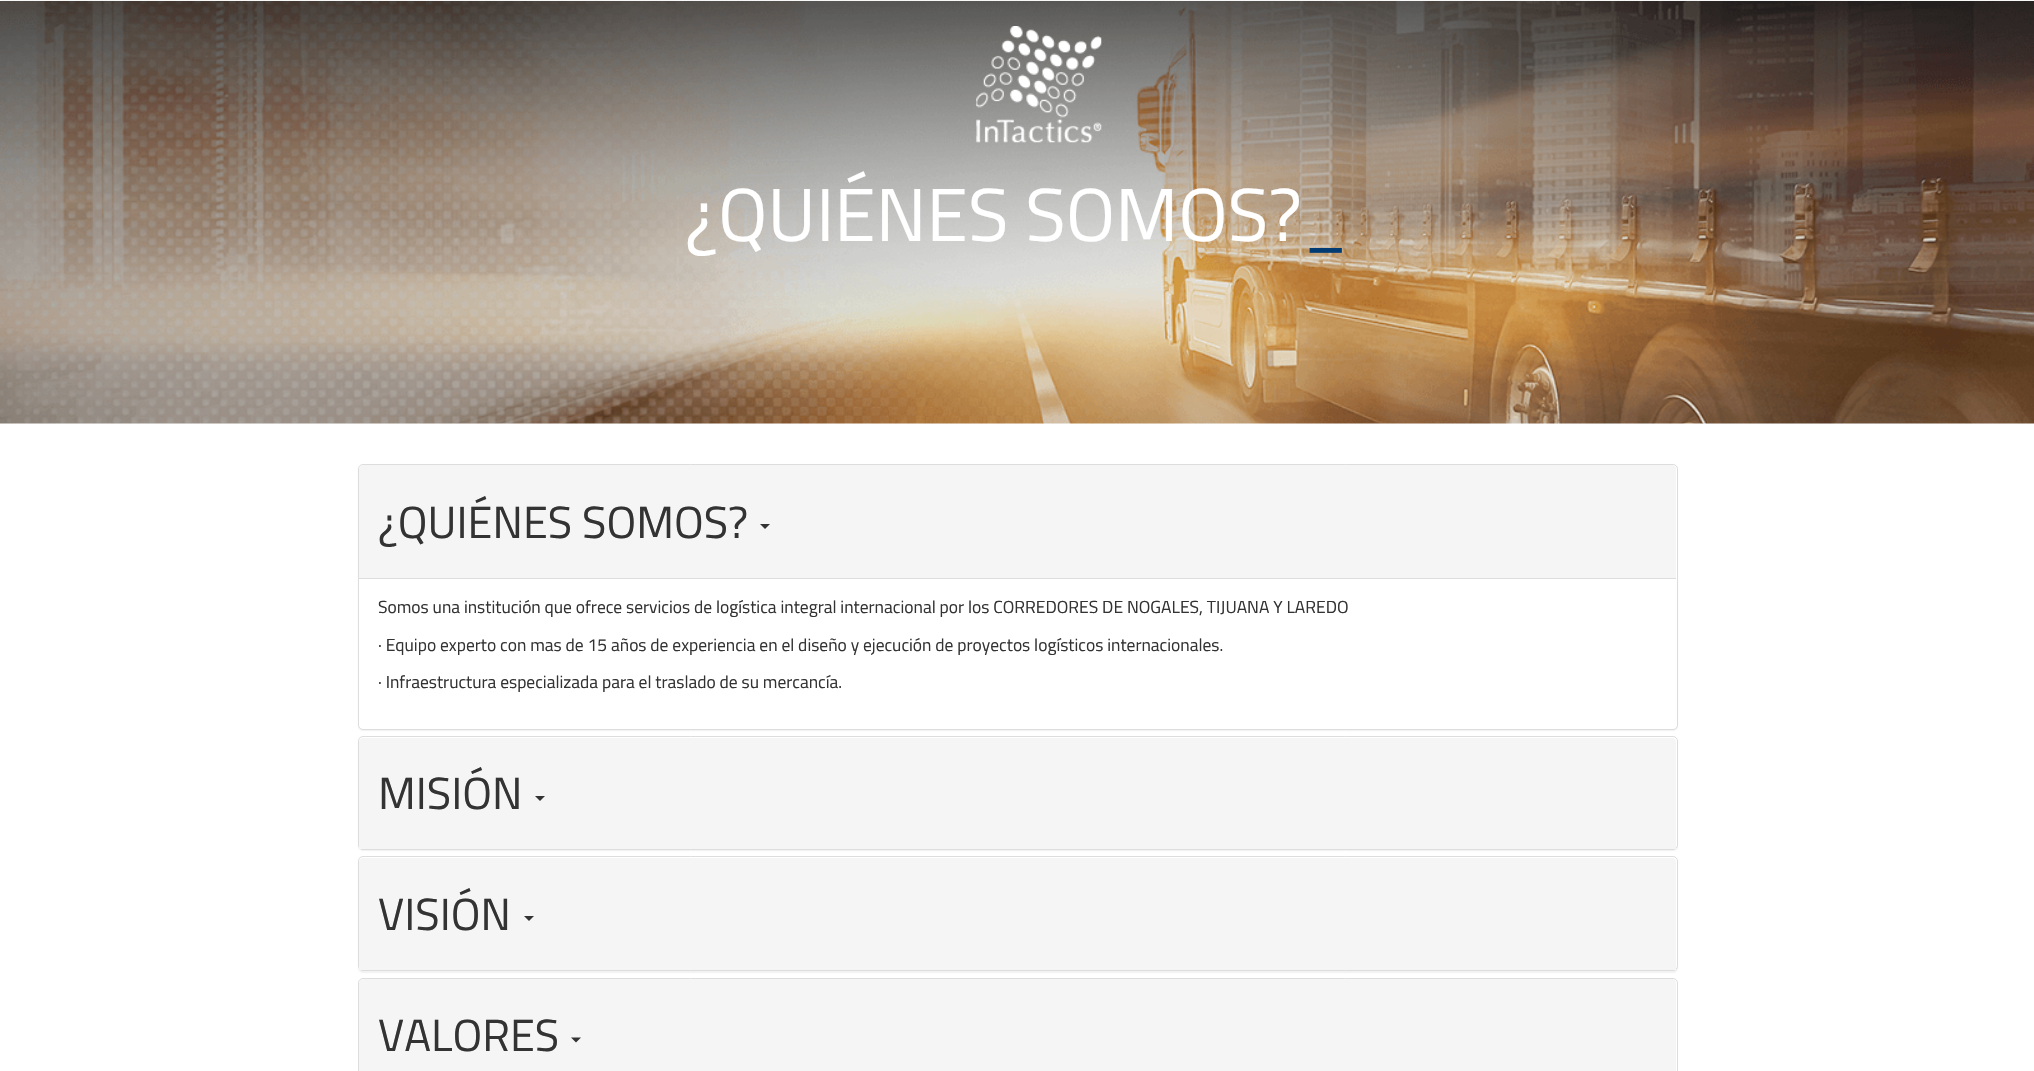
#include "include/core/SkBlurTypes.h"
#include "include/core/SkCanvas.h"
#include "include/core/SkData.h"
#include "include/core/SkFont.h"
#include "include/core/SkFontMgr.h"
#include "include/core/SkImage.h"
#include "include/core/SkMaskFilter.h"
#include "include/core/SkPaint.h"
#include "include/core/SkPathBuilder.h"
#include "include/core/SkTextBlob.h"
#include "include/effects/SkDashPathEffect.h"
#include "include/effects/SkGradientShader.h"
#include "include/utils/SkParsePath.h"

extern sk_sp<SkFontMgr> fontMgr;

void draw(SkCanvas* canvas) {
    SkPaint p;
    p.setAntiAlias(true);
    auto font = [&](const char* family, int weight, float size, bool italic = false) {
        SkFontStyle style(weight, SkFontStyle::kNormal_Width,
            italic ? SkFontStyle::kItalic_Slant : SkFontStyle::kUpright_Slant);
        SkFont result(fontMgr->matchFamilyStyle(family, style), size);
        result.setSubpixel(true);
        return result;
    };
    auto drawPhoto = [&](const char* path, float l, float t, float r, float b) {
        auto image = SkImages::DeferredFromEncodedData(SkData::MakeFromFileName(path));
        canvas->drawImageRect(image, SkRect::MakeLTRB(l, t, r, b), SkSamplingOptions());
    };
    canvas->clear(0xFFFFFFFF);
    p.setColor(0xFFF8F8F8);
    canvas->drawRoundRect(SkRect::MakeLTRB(0, -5, 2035, 1), 5, 5, p);
    drawPhoto("media/1.png", 0, 1, 2034, 424);
    drawPhoto("media/2.png", 976, 26, 1102, 143);
    auto font1 = font("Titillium", 400, 75);
    p.setColor(0xFFFFFFFF);
    canvas->drawString("¿QUIÉNES SOMOS?", 685, 241, font1, p);
    p.setColor(0xFF003B73);
    canvas->drawString("_", 1302, 241, font1, p);
    p.setColor(0x0D000000);
    p.setMaskFilter(SkMaskFilter::MakeBlur(kNormal_SkBlurStyle, 0.5f));
    canvas->drawRoundRect(SkRect::MakeLTRB(358, 465, 1678, 731), 5, 5, p);
    p.setMaskFilter(nullptr);
    p.setColor(0xFFFFFFFF);
    canvas->drawRoundRect(SkRect::MakeLTRB(358.5f, 464.5f, 1677.5f, 729.5f), 4.5f, 4.5f, p);
    p.setStyle(SkPaint::kStroke_Style);
    p.setStrokeWidth(1);
    p.setColor(0xFFDDDDDD);
    canvas->drawRoundRect(SkRect::MakeLTRB(358.5f, 464.5f, 1677.5f, 729.5f), 4.5f, 4.5f, p);
    p.setStyle(SkPaint::kFill_Style);
    p.setColor(0xFFF5F5F5);
    canvas->drawPath(SkPathBuilder().moveTo(363, 465).lineTo(1672, 465).cubicTo(1674, 465, 1676, 467, 1676, 469).lineTo(1676, 578).lineTo(359, 578).lineTo(359, 469).cubicTo(359, 467, 361, 465, 363, 465).close().detach(), p);
    auto font2 = font("Titillium", 400, 45);
    p.setColor(0xFF333333);
    canvas->drawString("¿QUIÉNES SOMOS?", 378, 538, font2, p);
    canvas->drawPath(SkPathBuilder().moveTo(760, 524).lineTo(770, 524).lineTo(765, 529).close().detach(), p);
    p.setColor(0xFFDDDDDD);
    canvas->drawRect(SkRect::MakeLTRB(359, 578, 1676, 579), p);
    auto font3 = font("Titillium", 400, 17.5f);
    p.setColor(0xFF333333);
    {
        const struct { const char* s; float x, y; } items[] = {
            {"Somos una institución que ofrece servicios de logística integral internacional por los CORREDORES DE NOGALES, TIJUANA Y LAREDO", 378, 613},
            {"· Equipo experto con mas de 15 años de experiencia en el diseño y ejecución de proyectos logísticos internacionales.", 378, 651},
            {"· Infraestructura especializada para el traslado de su mercancía.", 378, 688},
        };
        for (auto [s, x, y] : items) {
            canvas->drawString(s, x, y, font3, p);
        }
    }
    p.setColor(0x0D000000);
    p.setMaskFilter(SkMaskFilter::MakeBlur(kNormal_SkBlurStyle, 0.5f));
    canvas->drawRoundRect(SkRect::MakeLTRB(358, 738, 1678, 851), 5, 5, p);
    p.setMaskFilter(nullptr);
    p.setColor(0xFFFFFFFF);
    canvas->drawRoundRect(SkRect::MakeLTRB(358.5f, 736.5f, 1677.5f, 849.5f), 4.5f, 4.5f, p);
    p.setStyle(SkPaint::kStroke_Style);
    p.setColor(0xFFDDDDDD);
    canvas->drawRoundRect(SkRect::MakeLTRB(358.5f, 736.5f, 1677.5f, 849.5f), 4.5f, 4.5f, p);
    p.setStyle(SkPaint::kFill_Style);
    p.setColor(0xFFF5F5F5);
    canvas->drawPath(SkPathBuilder().moveTo(363, 738).lineTo(1672, 738).cubicTo(1674, 738, 1676, 740, 1676, 742).lineTo(1676, 849).lineTo(359, 849).lineTo(359, 742).cubicTo(359, 740, 361, 738, 363, 738).close().detach(), p);
    p.setColor(0xFF333333);
    canvas->drawString("MISIÓN", 378, 809, font2, p);
    canvas->drawPath(SkPathBuilder().moveTo(535, 796).lineTo(545, 796).lineTo(540, 801).close().detach(), p);
    p.setColor(0x0D000000);
    p.setMaskFilter(SkMaskFilter::MakeBlur(kNormal_SkBlurStyle, 0.5f));
    canvas->drawRoundRect(SkRect::MakeLTRB(358, 858, 1678, 973), 5, 5, p);
    p.setMaskFilter(nullptr);
    p.setColor(0xFFFFFFFF);
    canvas->drawRoundRect(SkRect::MakeLTRB(358.5f, 856.5f, 1677.5f, 970.5f), 4.5f, 4.5f, p);
    p.setStyle(SkPaint::kStroke_Style);
    p.setColor(0xFFDDDDDD);
    canvas->drawRoundRect(SkRect::MakeLTRB(358.5f, 856.5f, 1677.5f, 970.5f), 4.5f, 4.5f, p);
    p.setStyle(SkPaint::kFill_Style);
    p.setColor(0xFFF5F5F5);
    canvas->drawPath(SkPathBuilder().moveTo(363, 858).lineTo(1672, 858).cubicTo(1674, 858, 1676, 860, 1676, 862).lineTo(1676, 970).lineTo(359, 970).lineTo(359, 862).cubicTo(359, 860, 361, 858, 363, 858).close().detach(), p);
    p.setColor(0xFF333333);
    canvas->drawString("VISIÓN", 378, 930, font2, p);
    canvas->drawPath(SkPathBuilder().moveTo(524, 916).lineTo(534, 916).lineTo(529, 921).close().detach(), p);
    p.setStyle(SkPaint::kStroke_Style);
    p.setColor(0xFFDDDDDD);
    canvas->drawRoundRect(SkRect::MakeLTRB(358.5f, 978.5f, 1677.5f, 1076.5f), 4.5f, 4.5f, p);
    p.setStyle(SkPaint::kFill_Style);
    p.setColor(0xFFF5F5F5);
    canvas->drawPath(SkPathBuilder().moveTo(363, 979).lineTo(1672, 979).cubicTo(1674, 979, 1676, 981, 1676, 983).lineTo(1676, 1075).lineTo(359, 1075).lineTo(359, 983).cubicTo(359, 981, 361, 979, 363, 979).close().detach(), p);
    p.setColor(0xFF333333);
    canvas->drawString("VALORES", 378, 1051, font2, p);
    canvas->drawPath(SkPathBuilder().moveTo(571, 1037.5f).lineTo(581, 1037.5f).lineTo(576, 1042.5f).close().detach(), p);
}
